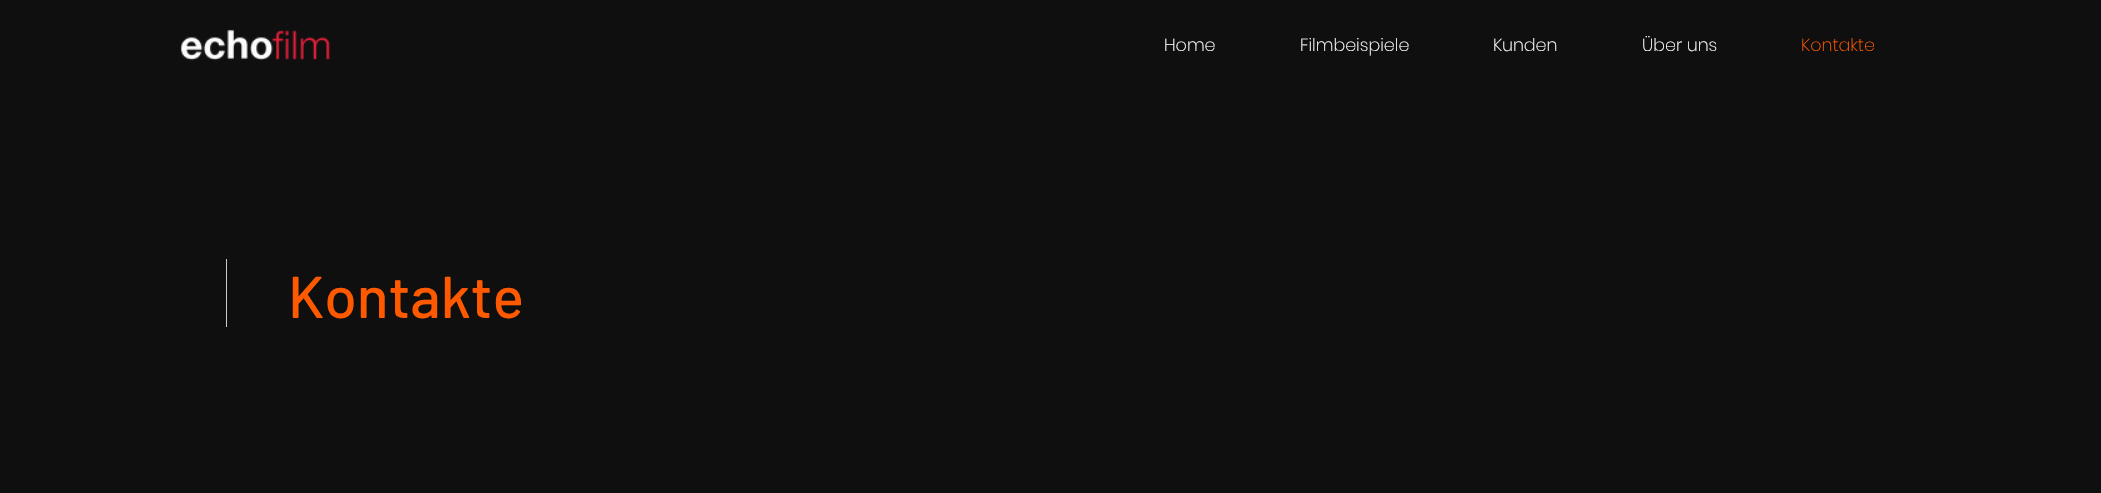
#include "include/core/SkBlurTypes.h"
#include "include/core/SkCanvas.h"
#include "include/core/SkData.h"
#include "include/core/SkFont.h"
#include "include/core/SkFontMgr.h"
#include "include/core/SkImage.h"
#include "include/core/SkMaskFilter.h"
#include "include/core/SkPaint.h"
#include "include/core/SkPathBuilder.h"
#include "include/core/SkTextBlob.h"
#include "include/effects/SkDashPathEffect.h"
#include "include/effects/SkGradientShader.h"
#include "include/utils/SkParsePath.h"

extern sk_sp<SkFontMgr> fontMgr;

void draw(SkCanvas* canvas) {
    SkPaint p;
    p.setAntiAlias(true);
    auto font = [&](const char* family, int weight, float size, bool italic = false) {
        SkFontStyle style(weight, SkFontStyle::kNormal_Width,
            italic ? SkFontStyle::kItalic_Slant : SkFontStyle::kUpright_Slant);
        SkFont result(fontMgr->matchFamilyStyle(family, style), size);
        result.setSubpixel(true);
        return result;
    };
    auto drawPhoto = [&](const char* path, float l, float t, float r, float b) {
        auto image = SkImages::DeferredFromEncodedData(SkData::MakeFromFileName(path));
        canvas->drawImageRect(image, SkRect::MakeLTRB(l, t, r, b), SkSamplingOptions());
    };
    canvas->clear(0xFF0F0F0F);
    drawPhoto("media/1.png", 180, 29, 331, 61);
    auto font1 = font("Poppins", 200, 17.5f);
    p.setColor(0xFFFFFFFF);
    {
        const struct { const char* s; float x, y; } items[] = {
            {"Home", 1164, 51},
            {"Filmbeispiele", 1300, 51},
            {"Kunden", 1493, 51},
            {"Über uns", 1642, 51},
        };
        for (auto [s, x, y] : items) {
            canvas->drawString(s, x, y, font1, p);
        }
    }
    p.setColor(0xFFFF5900);
    canvas->drawString("Kontakte", 1801, 51, font1, p);
    p.setColor(0xFFCCCACA);
    canvas->drawRect(SkRect::MakeLTRB(226, 259, 227, 327), p);
    auto font2 = font("Barlow", 500, 58.75f);
    p.setColor(0xFFFF5900);
    canvas->drawString("Kontakte", 288, 318, font2, p);
}
